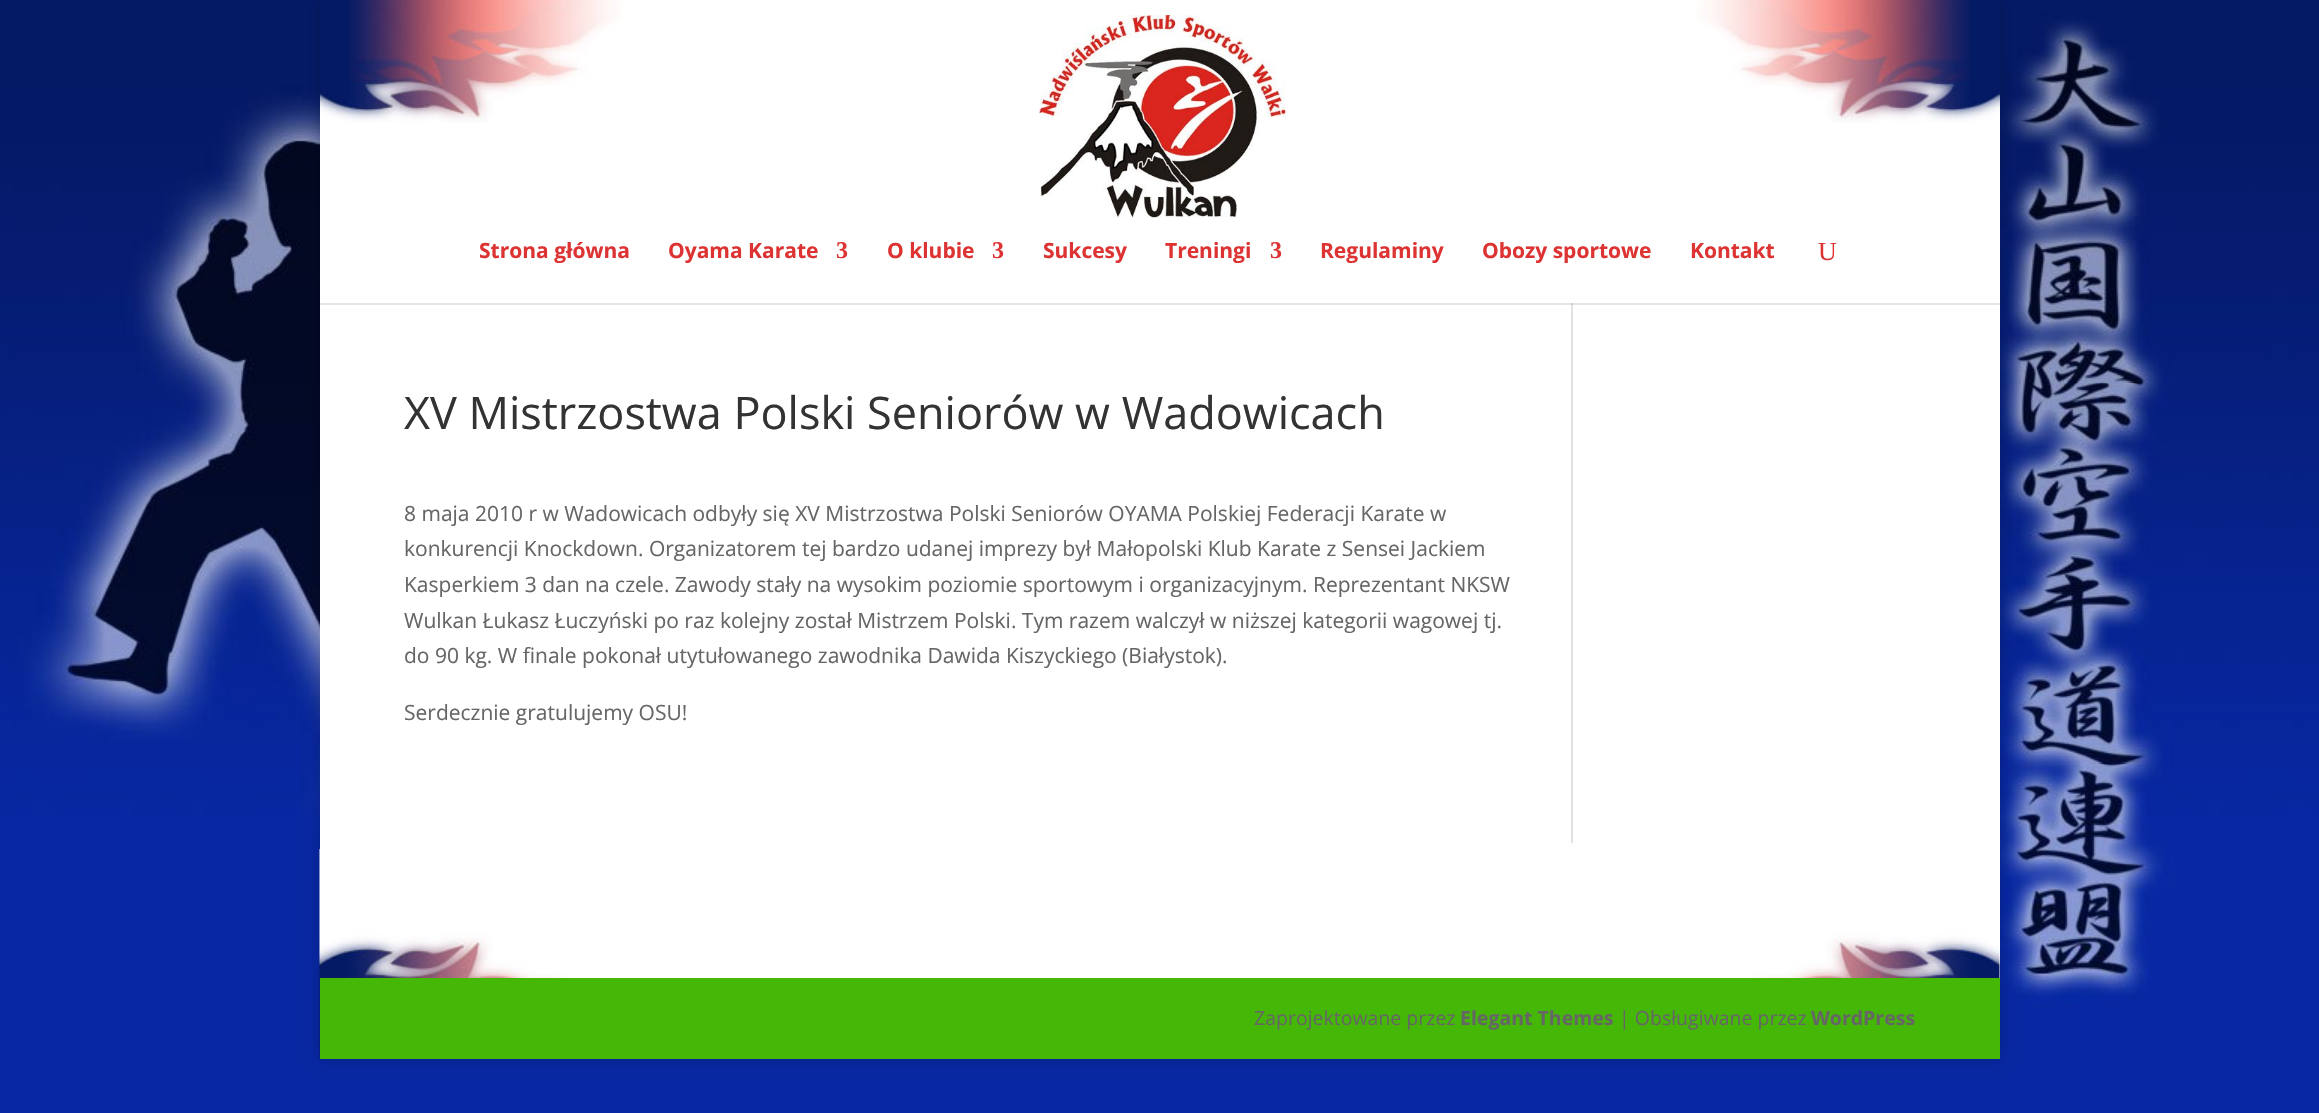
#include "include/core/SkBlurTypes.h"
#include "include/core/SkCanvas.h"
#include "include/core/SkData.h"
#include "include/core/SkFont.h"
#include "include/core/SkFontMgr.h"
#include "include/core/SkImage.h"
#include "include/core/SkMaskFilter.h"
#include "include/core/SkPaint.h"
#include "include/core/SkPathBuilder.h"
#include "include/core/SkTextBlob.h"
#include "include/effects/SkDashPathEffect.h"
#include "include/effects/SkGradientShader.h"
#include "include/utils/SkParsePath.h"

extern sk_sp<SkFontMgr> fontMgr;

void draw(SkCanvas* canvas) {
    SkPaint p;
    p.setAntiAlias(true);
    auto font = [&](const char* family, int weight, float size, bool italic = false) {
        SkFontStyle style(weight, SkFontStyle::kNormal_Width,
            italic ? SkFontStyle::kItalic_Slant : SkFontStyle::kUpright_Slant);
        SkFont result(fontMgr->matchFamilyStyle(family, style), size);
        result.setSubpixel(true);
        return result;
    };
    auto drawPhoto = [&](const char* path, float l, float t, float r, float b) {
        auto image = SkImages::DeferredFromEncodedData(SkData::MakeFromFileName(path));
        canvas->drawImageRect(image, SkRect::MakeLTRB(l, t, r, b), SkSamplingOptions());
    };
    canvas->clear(0xFFFFFFFF);
    drawPhoto("media/1.png", 0, 0, 2319, 1113);
    p.setColor(0x33000000);
    p.setMaskFilter(SkMaskFilter::MakeBlur(kNormal_SkBlurStyle, 7.5f));
    canvas->drawRect(SkRect::MakeLTRB(320, 0, 2000, 1059), p);
    p.setMaskFilter(nullptr);
    p.setColor(0xFFFFFFFF);
    canvas->drawRect(SkRect::MakeLTRB(320, 123, 2000, 978), p);
    p.setColor(0xFFE2E2E2);
    canvas->drawRect(SkRect::MakeLTRB(1571, 303, 1573, 843), p);
    p.setColor(0x1A000000);
    canvas->drawPath(SkPathBuilder().moveTo(320, 303).lineTo(320, 305).lineTo(2000, 305).lineTo(2000, 2).lineTo(2000, 303).close().detach(), p);
    drawPhoto("media/2.png", 320, 0, 2000, 123);
    drawPhoto("media/3.png", 1039, 15, 1286, 218);
    auto font1 = font("Open Sans", 700, 21);
    p.setColor(0xFFDD3333);
    canvas->drawString("Strona główna", 479, 258, font1, p);
    canvas->drawString("Oyama Karate", 668, 258, font1, p);
    auto font2 = font("Liberation Serif", 700, 24);
    canvas->drawString("3", 836, 258, font2, p);
    canvas->drawString("O klubie", 887, 258, font1, p);
    canvas->drawString("3", 992, 258, font2, p);
    canvas->drawString("Sukcesy", 1043, 258, font1, p);
    canvas->drawString("Treningi", 1165, 258, font1, p);
    canvas->drawString("3", 1270, 258, font2, p);
    {
        const struct { const char* s; float x, y; } items[] = {
            {"Regulaminy", 1320, 258},
            {"Obozy sportowe", 1482, 258},
            {"Kontakt", 1690, 258},
        };
        for (auto [s, x, y] : items) {
            canvas->drawString(s, x, y, font1, p);
        }
    }
    auto font3 = font("Liberation Serif", 400, 26);
    canvas->drawString("U", 1818, 260, font3, p);
    auto font4 = font("Open Sans", 400, 45);
    p.setColor(0xFF333333);
    canvas->drawString("XV Mistrzostwa Polski Seniorów w Wadowicach", 404, 429, font4, p);
    auto font5 = font("Open Sans", 400, 21);
    p.setColor(0xFF666666);
    {
        const struct { const char* s; float x, y; } items[] = {
            {"8 maja 2010 r w Wadowicach odbyły się XV Mistrzostwa Polski Seniorów OYAMA Polskiej Federacji Karate w", 404, 521},
            {"konkurencji Knockdown. Organizatorem tej bardzo udanej imprezy był Małopolski Klub Karate z Sensei Jackiem", 404, 556},
            {"Kasperkiem 3 dan na czele. Zawody stały na wysokim poziomie sportowym i organizacyjnym. Reprezentant NKSW", 404, 592},
            {"Wulkan Łukasz Łuczyński po raz kolejny został Mistrzem Polski. Tym razem walczył w niższej kategorii wagowej tj.", 404, 628},
            {"do 90 kg. W finale pokonał utytułowanego zawodnika Dawida Kiszyckiego (Białystok).", 404, 663},
            {"Serdecznie gratulujemy OSU!", 404, 720},
        };
        for (auto [s, x, y] : items) {
            canvas->drawString(s, x, y, font5, p);
        }
    }
    drawPhoto("media/4.png", 319, 849, 2000, 1059);
    p.setColor(0xFF45B707);
    canvas->drawRect(SkRect::MakeLTRB(320, 978, 2000, 1059), p);
    auto font6 = font("Open Sans", 400, 19.5f);
    p.setColor(0xFF666666);
    canvas->drawString("Zaprojektowane przez", 1254, 1025, font6, p);
    auto font7 = font("Open Sans", 700, 19.5f);
    canvas->drawString("Elegant Themes", 1460, 1025, font7, p);
    canvas->drawString("| Obsługiwane przez", 1619, 1025, font6, p);
    canvas->drawString("WordPress", 1811, 1025, font7, p);
}
